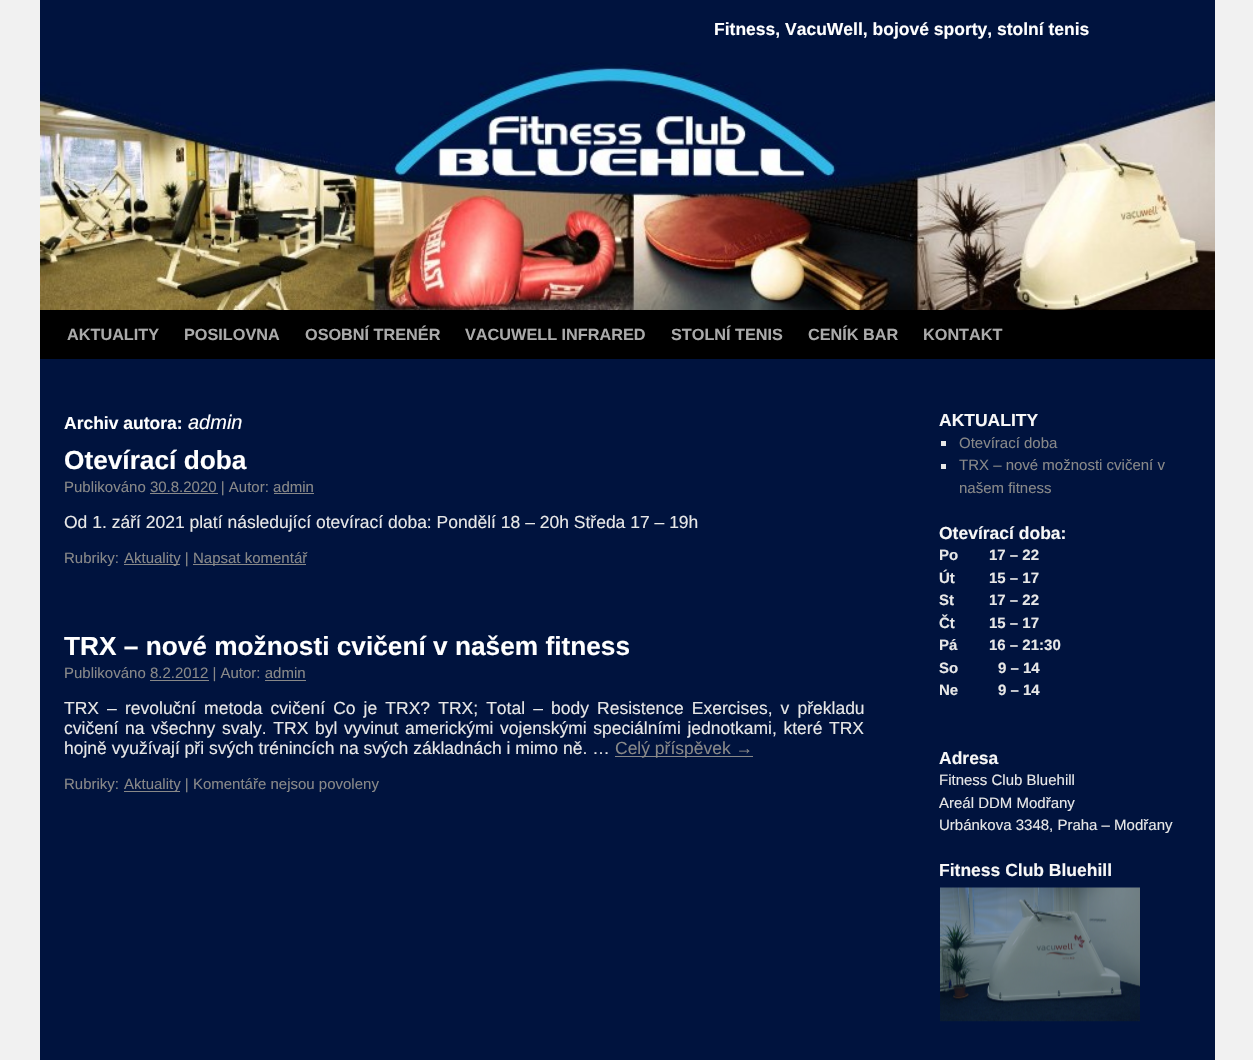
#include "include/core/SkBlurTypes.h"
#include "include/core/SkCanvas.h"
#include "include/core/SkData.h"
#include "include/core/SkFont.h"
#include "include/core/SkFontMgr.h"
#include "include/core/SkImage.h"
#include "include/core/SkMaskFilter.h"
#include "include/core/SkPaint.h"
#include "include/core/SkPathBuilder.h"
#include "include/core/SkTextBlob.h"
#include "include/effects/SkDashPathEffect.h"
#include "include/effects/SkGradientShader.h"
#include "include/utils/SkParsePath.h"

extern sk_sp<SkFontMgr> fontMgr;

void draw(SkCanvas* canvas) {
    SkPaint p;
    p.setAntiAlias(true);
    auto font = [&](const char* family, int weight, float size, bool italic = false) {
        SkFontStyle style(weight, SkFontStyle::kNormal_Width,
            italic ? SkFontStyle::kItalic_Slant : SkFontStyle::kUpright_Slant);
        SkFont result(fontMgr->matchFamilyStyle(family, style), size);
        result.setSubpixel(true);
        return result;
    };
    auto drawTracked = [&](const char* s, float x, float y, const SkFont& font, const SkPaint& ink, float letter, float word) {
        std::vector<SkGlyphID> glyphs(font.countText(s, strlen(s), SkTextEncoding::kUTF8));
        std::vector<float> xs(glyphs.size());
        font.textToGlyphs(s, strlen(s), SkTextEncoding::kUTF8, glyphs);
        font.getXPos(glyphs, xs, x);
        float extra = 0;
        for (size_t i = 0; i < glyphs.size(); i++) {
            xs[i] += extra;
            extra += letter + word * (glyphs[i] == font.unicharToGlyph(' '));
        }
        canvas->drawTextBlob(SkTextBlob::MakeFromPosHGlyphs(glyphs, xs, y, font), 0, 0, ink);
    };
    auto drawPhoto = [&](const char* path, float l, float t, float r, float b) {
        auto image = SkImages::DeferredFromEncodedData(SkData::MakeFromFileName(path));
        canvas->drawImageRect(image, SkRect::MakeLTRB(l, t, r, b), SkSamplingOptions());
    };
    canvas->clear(0xFFF1F1F1);
    p.setColor(0xFF00133E);
    canvas->drawRect(SkRect::MakeLTRB(40, 0, 1215, 1060), p);
    auto font1 = font("Liberation Sans", 700, 17.5f);
    p.setColor(0xFFFFFFFF);
    canvas->drawString("Fitness, VacuWell, bojové sporty, stolní tenis", 714, 35, font1, p);
    p.setColor(0xFF000000);
    canvas->drawRect(SkRect::MakeLTRB(40, 310, 1215, 359), p);
    drawPhoto("media/1.png", 40, 62, 1215, 310);
    auto font2 = font("Liberation Sans", 700, 16.25f);
    p.setColor(0xFFAAAAAA);
    {
        const struct { const char* s; float x, y; } items[] = {
            {"AKTUALITY", 67, 340},
            {"POSILOVNA", 184, 340},
            {"OSOBNÍ TRENÉR", 305, 340},
            {"VACUWELL INFRARED", 465, 340},
            {"STOLNÍ TENIS", 671, 340},
            {"CENÍK BAR", 808, 340},
            {"KONTAKT", 923, 340},
        };
        for (auto [s, x, y] : items) {
            canvas->drawString(s, x, y, font2, p);
        }
    }
    p.setColor(0xFFFFFFFF);
    canvas->drawString("Archiv autora:", 64, 429, font1, p);
    auto font3 = font("Liberation Sans", 400, 20, true);
    canvas->drawString("admin", 188, 429, font3, p);
    auto font4 = font("Liberation Sans", 700, 26.25f);
    canvas->drawString("Otevírací doba", 64, 469, font4, p);
    auto font5 = font("Liberation Sans", 400, 15);
    p.setColor(0xFF888888);
    canvas->drawString("Publikováno 30.8.2020 | Autor: admin", 64, 492, font5, p);
    canvas->drawRect(SkRect::MakeLTRB(150, 493, 218, 494), p);
    canvas->drawRect(SkRect::MakeLTRB(274, 493, 314, 494), p);
    auto font6 = font("Liberation Sans", 400, 17.5f);
    p.setColor(0xFFE7E7E7);
    canvas->drawString("Od 1. září 2021 platí následující otevírací doba: Pondělí 18 – 20h Středa 17 – 19h", 64, 528, font6, p);
    p.setColor(0xFF888888);
    canvas->drawString("Rubriky:", 64, 563, font5, p);
    canvas->drawRect(SkRect::MakeLTRB(124, 564, 180, 565), p);
    canvas->drawString("Aktuality |", 124, 563, font5, p);
    canvas->drawRect(SkRect::MakeLTRB(193, 564, 306, 565), p);
    canvas->drawString("Napsat komentář", 193, 563, font5, p);
    p.setColor(0xFFFFFFFF);
    canvas->drawString("TRX – nové možnosti cvičení v našem fitness", 64, 655, font4, p);
    p.setColor(0xFF888888);
    canvas->drawString("Publikováno 8.2.2012 | Autor: admin", 64, 678, font5, p);
    canvas->drawRect(SkRect::MakeLTRB(150, 680, 209, 681), p);
    canvas->drawRect(SkRect::MakeLTRB(265, 680, 306, 681), p);
    p.setColor(0xFFE7E7E7);
    drawTracked("TRX – revoluční metoda cvičení Co je TRX? TRX; Total – body Resistence Exercises, v překladu", 64, 714, font6, p, 0, 3.25f);
    drawTracked("cvičení na všechny svaly. TRX byl vyvinut americkými vojenskými speciálními jednotkami, které TRX", 64, 734, font6, p, 0, 1.75f);
    canvas->drawString("hojně využívají při svých trénincích na svých základnách i mimo ně. …", 64, 754, font6, p);
    p.setColor(0xFF888888);
    canvas->drawRect(SkRect::MakeLTRB(615, 756, 753, 757), p);
    canvas->drawString("Celý příspěvek →", 615, 754, font6, p);
    canvas->drawString("Rubriky:", 64, 789, font5, p);
    canvas->drawRect(SkRect::MakeLTRB(124, 791, 180, 792), p);
    canvas->drawString("Aktuality | Komentáře nejsou povoleny", 124, 789, font5, p);
    p.setColor(0xFFF7F7F7);
    canvas->drawString("AKTUALITY", 939, 426, font1, p);
    p.setColor(0xFFE7E7E7);
    canvas->drawRect(SkRect::MakeLTRB(941, 441, 946, 446), p);
    p.setColor(0xFF888888);
    canvas->drawString("Otevírací doba", 959, 448, font5, p);
    p.setColor(0xFFE7E7E7);
    canvas->drawRect(SkRect::MakeLTRB(941, 464, 946, 469), p);
    p.setColor(0xFF888888);
    canvas->drawString("TRX – nové možnosti cvičení v", 959, 470, font5, p);
    canvas->drawString("našem fitness", 959, 493, font5, p);
    p.setColor(0xFFF7F7F7);
    canvas->drawString("Otevírací doba:", 939, 539, font1, p);
    auto font7 = font("Liberation Sans", 700, 15);
    p.setColor(0xFFE7E7E7);
    {
        const struct { const char* s; float x, y; } items[] = {
            {"Po", 939, 560},
            {"Út", 939, 583},
            {"St", 939, 605},
            {"Čt", 939, 628},
            {"Pá", 939, 650},
            {"So", 939, 673},
            {"Ne", 939, 695},
            {"17 – 22", 989, 560},
            {"15 – 17", 989, 583},
            {"17 – 22", 989, 605},
            {"15 – 17", 989, 628},
            {"16 – 21:30", 989, 650},
            {"9 – 14", 998, 673},
            {"9 – 14", 998, 695},
        };
        for (auto [s, x, y] : items) {
            canvas->drawString(s, x, y, font7, p);
        }
    }
    p.setColor(0xFFF7F7F7);
    canvas->drawString("Adresa", 939, 764, font1, p);
    p.setColor(0xFFE7E7E7);
    {
        const struct { const char* s; float x, y; } items[] = {
            {"Fitness Club Bluehill", 939, 785},
            {"Areál DDM Modřany", 939, 808},
            {"Urbánkova 3348, Praha – Modřany", 939, 830},
        };
        for (auto [s, x, y] : items) {
            canvas->drawString(s, x, y, font5, p);
        }
    }
    p.setColor(0xFFF7F7F7);
    canvas->drawString("Fitness Club Bluehill", 939, 876, font1, p);
    drawPhoto("media/2.png", 940, 887, 1140, 1022);
}
